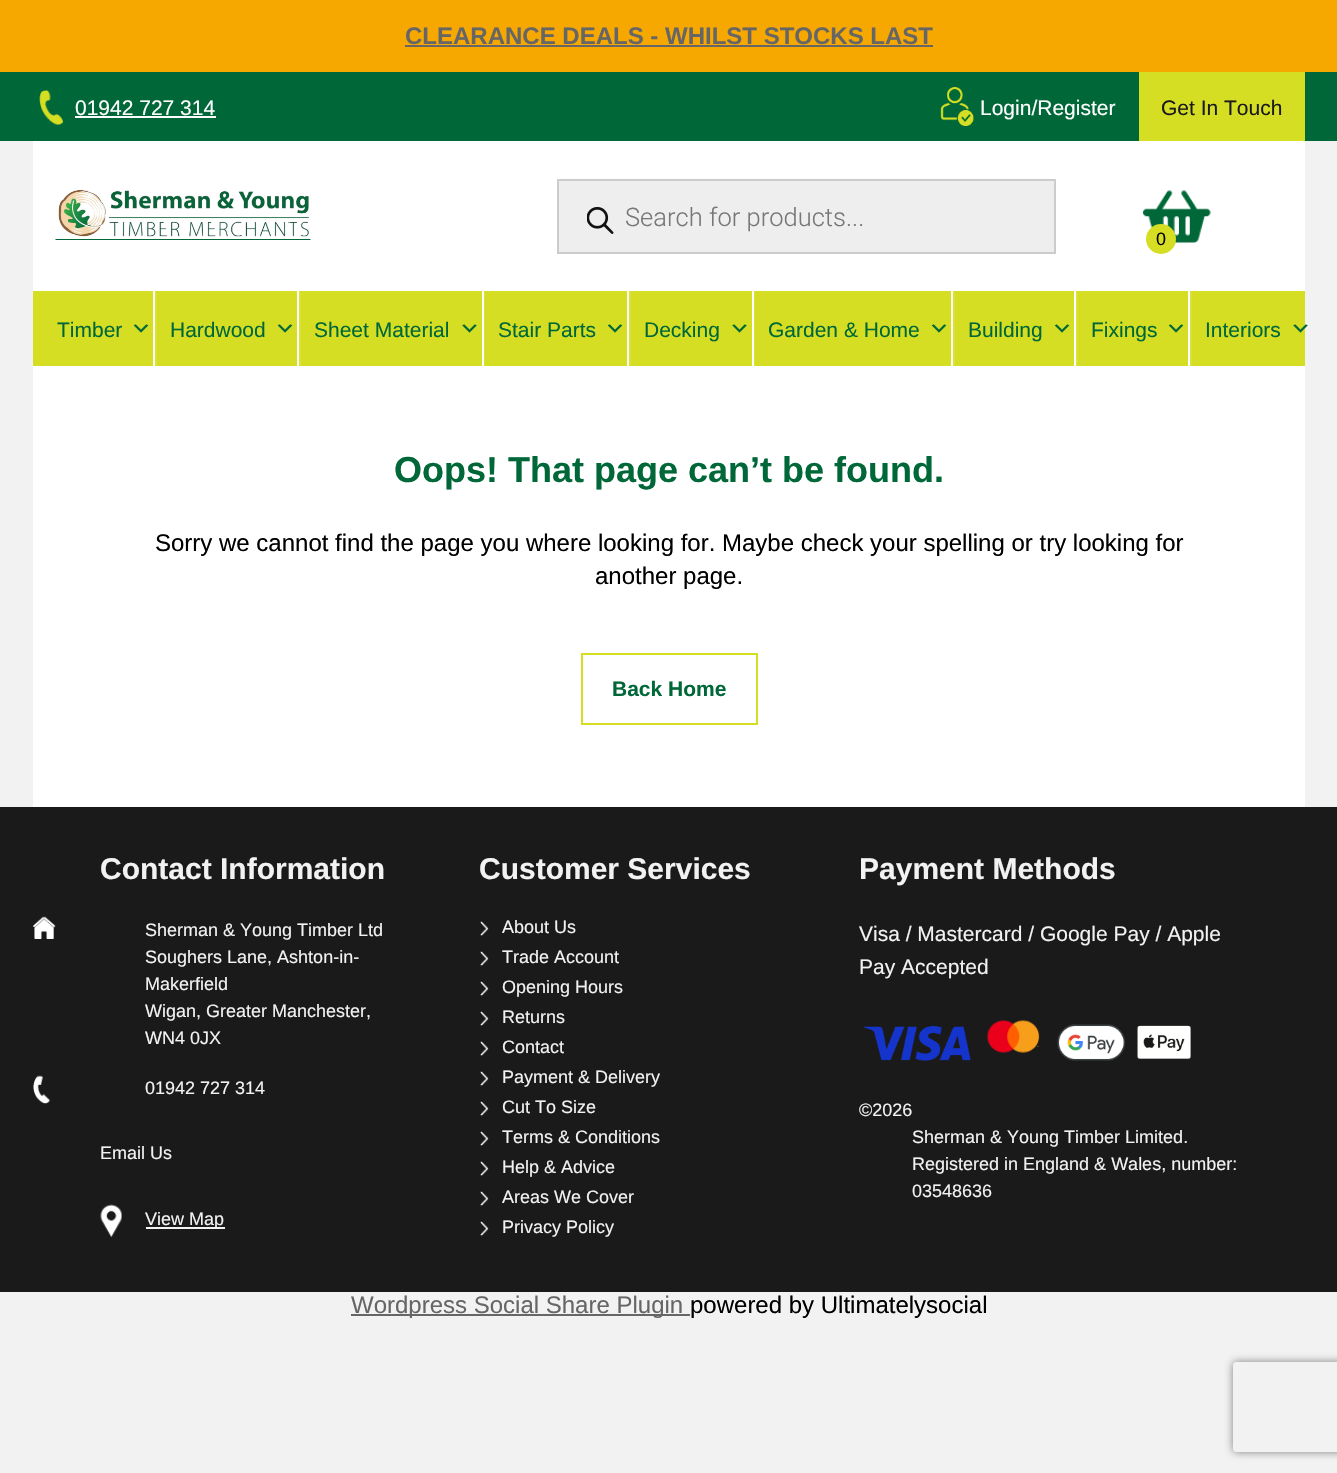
#include "include/core/SkBlurTypes.h"
#include "include/core/SkCanvas.h"
#include "include/core/SkData.h"
#include "include/core/SkFont.h"
#include "include/core/SkFontMgr.h"
#include "include/core/SkImage.h"
#include "include/core/SkMaskFilter.h"
#include "include/core/SkPaint.h"
#include "include/core/SkPathBuilder.h"
#include "include/core/SkTextBlob.h"
#include "include/effects/SkDashPathEffect.h"
#include "include/effects/SkGradientShader.h"
#include "include/utils/SkParsePath.h"

extern sk_sp<SkFontMgr> fontMgr;

void draw(SkCanvas* canvas) {
    SkPaint p;
    p.setAntiAlias(true);
    auto font = [&](const char* family, int weight, float size, bool italic = false) {
        SkFontStyle style(weight, SkFontStyle::kNormal_Width,
            italic ? SkFontStyle::kItalic_Slant : SkFontStyle::kUpright_Slant);
        SkFont result(fontMgr->matchFamilyStyle(family, style), size);
        result.setSubpixel(true);
        return result;
    };
    auto drawPhoto = [&](const char* path, float l, float t, float r, float b) {
        auto image = SkImages::DeferredFromEncodedData(SkData::MakeFromFileName(path));
        canvas->drawImageRect(image, SkRect::MakeLTRB(l, t, r, b), SkSamplingOptions());
    };
    canvas->clear(0xFFF2F2F2);
    p.setColor(0xFFF6A800);
    canvas->drawRect(SkRect::MakeLTRB(0, 0, 1337, 72), p);
    auto font1 = font("Liberation Sans", 700, 24);
    p.setColor(0xFF666666);
    canvas->drawString("CLEARANCE DEALS - WHILST STOCKS LAST", 405, 44, font1, p);
    canvas->drawRect(SkRect::MakeLTRB(405, 45, 933, 47), p);
    p.setColor(0xFF006838);
    canvas->drawRect(SkRect::MakeLTRB(0, 72, 1337, 141), p);
    drawPhoto("media/1.png", 39, 90, 63, 125);
    auto font2 = font("Liberation Sans", 400, 21);
    p.setColor(0xFFFFFFFF);
    canvas->drawString("01942 727 314", 75, 115, font2, p);
    canvas->drawRect(SkRect::MakeLTRB(75, 116, 216, 118), p);
    drawPhoto("media/2.png", 940, 87, 974, 126);
    canvas->drawString("Login/Register", 980, 115, font2, p);
    p.setColor(0xFFD6DE23);
    canvas->drawRect(SkRect::MakeLTRB(1139, 72, 1305, 141), p);
    p.setColor(0xFF1A1A1A);
    canvas->drawString("Get In Touch", 1161, 115, font2, p);
    p.setColor(0xFFFFFFFF);
    canvas->drawRect(SkRect::MakeLTRB(33, 141, 1305, 291), p);
    drawPhoto("media/3.png", 55, 189, 311, 240);
    p.setColor(0xFFEEEEEE);
    canvas->drawRect(SkRect::MakeLTRB(558, 180, 1055, 253), p);
    p.setStyle(SkPaint::kStroke_Style);
    p.setStrokeWidth(2);
    p.setColor(0xFFCCCCCC);
    canvas->drawRect(SkRect::MakeLTRB(558, 180, 1055, 253), p);
    drawPhoto("media/4.png", 587, 207, 614, 234);
    auto font3 = font("Roboto", 300, 25.5f);
    p.setStyle(SkPaint::kFill_Style);
    p.setColor(0xFF777777);
    canvas->drawString("Search for products...", 625, 226, font3, p);
    drawPhoto("media/5.png", 1143, 190, 1211, 243);
    p.setColor(0xFFD6DE23);
    canvas->drawCircle(1161, 239, 15, p);
    auto font4 = font("Liberation Sans", 400, 18);
    p.setColor(0xFF000000);
    canvas->drawString("0", 1156, 245, font4, p);
    p.setColor(0xFFD6DE23);
    canvas->drawRect(SkRect::MakeLTRB(33, 291, 1305, 366), p);
    p.setColor(0xFF006838);
    canvas->drawString("Timber", 57, 337, font2, p);
    drawPhoto("media/6.png", 133, 324, 149, 333);
    p.setColor(0xFFDAE139);
    canvas->drawRect(SkRect::MakeLTRB(155, 291, 157, 366), p);
    p.setColor(0xFFFFFFFF);
    canvas->drawRect(SkRect::MakeLTRB(153, 291, 155, 366), p);
    p.setColor(0xFF006838);
    canvas->drawString("Hardwood", 170, 337, font2, p);
    drawPhoto("media/6.png", 277, 324, 293, 333);
    p.setColor(0xFFDAE139);
    canvas->drawRect(SkRect::MakeLTRB(299, 291, 301, 366), p);
    p.setColor(0xFFFFFFFF);
    canvas->drawRect(SkRect::MakeLTRB(297, 291, 299, 366), p);
    p.setColor(0xFF006838);
    canvas->drawString("Sheet Material", 314, 337, font2, p);
    drawPhoto("media/7.png", 462, 324, 477, 333);
    p.setColor(0xFFDAE139);
    canvas->drawRect(SkRect::MakeLTRB(484, 291, 485, 366), p);
    p.setColor(0xFFFFFFFF);
    canvas->drawRect(SkRect::MakeLTRB(482, 291, 484, 366), p);
    p.setColor(0xFF006838);
    canvas->drawString("Stair Parts", 498, 337, font2, p);
    drawPhoto("media/6.png", 607, 324, 623, 333);
    p.setColor(0xFFDAE139);
    canvas->drawRect(SkRect::MakeLTRB(629, 291, 631, 366), p);
    p.setColor(0xFFFFFFFF);
    canvas->drawRect(SkRect::MakeLTRB(627, 291, 629, 366), p);
    p.setColor(0xFF006838);
    canvas->drawString("Decking", 644, 337, font2, p);
    drawPhoto("media/7.png", 732, 324, 747, 333);
    p.setColor(0xFFDAE139);
    canvas->drawRect(SkRect::MakeLTRB(754, 291, 755, 366), p);
    p.setColor(0xFFFFFFFF);
    canvas->drawRect(SkRect::MakeLTRB(752, 291, 754, 366), p);
    p.setColor(0xFF006838);
    canvas->drawString("Garden & Home", 768, 337, font2, p);
    drawPhoto("media/6.png", 931, 324, 947, 333);
    p.setColor(0xFFDAE139);
    canvas->drawRect(SkRect::MakeLTRB(953, 291, 955, 366), p);
    p.setColor(0xFFFFFFFF);
    canvas->drawRect(SkRect::MakeLTRB(951, 291, 953, 366), p);
    p.setColor(0xFF006838);
    canvas->drawString("Building", 968, 337, font2, p);
    drawPhoto("media/6.png", 1054, 324, 1070, 333);
    p.setColor(0xFFDAE139);
    canvas->drawRect(SkRect::MakeLTRB(1076, 291, 1078, 366), p);
    p.setColor(0xFFFFFFFF);
    canvas->drawRect(SkRect::MakeLTRB(1074, 291, 1076, 366), p);
    p.setColor(0xFF006838);
    canvas->drawString("Fixings", 1091, 337, font2, p);
    drawPhoto("media/6.png", 1168, 324, 1184, 333);
    p.setColor(0xFFDAE139);
    canvas->drawRect(SkRect::MakeLTRB(1190, 291, 1192, 366), p);
    p.setColor(0xFFFFFFFF);
    canvas->drawRect(SkRect::MakeLTRB(1188, 291, 1190, 366), p);
    p.setColor(0xFF006838);
    canvas->drawString("Interiors", 1205, 337, font2, p);
    drawPhoto("media/8.png", 1293, 324, 1308, 333);
    p.setColor(0xFFFFFFFF);
    canvas->drawRect(SkRect::MakeLTRB(33, 366, 1305, 807), p);
    auto font5 = font("Liberation Sans", 700, 36);
    p.setColor(0xFF006838);
    canvas->drawString("Oops! That page can’t be found.", 394, 482, font5, p);
    auto font6 = font("Liberation Sans", 400, 24);
    p.setColor(0xFF000000);
    canvas->drawString("Sorry we cannot find the page you where looking for. Maybe check your spelling or try looking for", 155, 551, font6, p);
    canvas->drawString("another page.", 595, 584, font6, p);
    p.setStyle(SkPaint::kStroke_Style);
    p.setColor(0xFFD6DE23);
    canvas->drawRect(SkRect::MakeLTRB(582, 654, 757, 724), p);
    auto font7 = font("Liberation Sans", 700, 21);
    p.setStyle(SkPaint::kFill_Style);
    p.setColor(0xFF006838);
    canvas->drawString("Back Home", 612, 696, font7, p);
    p.setColor(0xFF1A1A1A);
    canvas->drawRect(SkRect::MakeLTRB(0, 807, 1337, 1292), p);
    auto font8 = font("Liberation Sans", 700, 30);
    p.setColor(0xFFF2F2F2);
    canvas->drawString("Contact Information", 100, 879, font8, p);
    drawPhoto("media/9.png", 33, 916, 56, 939);
    {
        const struct { const char* s; float x, y; } items[] = {
            {"Sherman & Young Timber Ltd", 145, 936},
            {"Soughers Lane, Ashton-in-", 145, 963},
            {"Makerfield", 145, 990},
            {"Wigan, Greater Manchester,", 145, 1017},
            {"WN4 0JX", 145, 1044},
        };
        for (auto [s, x, y] : items) {
            canvas->drawString(s, x, y, font4, p);
        }
    }
    drawPhoto("media/10.png", 33, 1075, 50, 1104);
    canvas->drawString("01942 727 314", 145, 1094, font4, p);
    canvas->drawString("Email Us", 100, 1159, font4, p);
    drawPhoto("media/11.png", 100, 1204, 122, 1238);
    canvas->drawRect(SkRect::MakeLTRB(146, 1227, 225, 1229), p);
    canvas->drawString("View Map", 145, 1225, font4, p);
    canvas->drawString("Customer Services", 479, 879, font8, p);
    drawPhoto("media/12.png", 480, 921, 489, 936);
    canvas->drawString("About Us", 502, 933, font4, p);
    drawPhoto("media/12.png", 480, 951, 489, 966);
    canvas->drawString("Trade Account", 502, 963, font4, p);
    drawPhoto("media/12.png", 480, 981, 489, 996);
    canvas->drawString("Opening Hours", 502, 993, font4, p);
    drawPhoto("media/12.png", 480, 1011, 489, 1026);
    canvas->drawString("Returns", 502, 1023, font4, p);
    drawPhoto("media/12.png", 480, 1041, 489, 1056);
    canvas->drawString("Contact", 502, 1053, font4, p);
    drawPhoto("media/12.png", 480, 1071, 489, 1086);
    canvas->drawString("Payment & Delivery", 502, 1083, font4, p);
    drawPhoto("media/12.png", 480, 1101, 489, 1116);
    canvas->drawString("Cut To Size", 502, 1113, font4, p);
    drawPhoto("media/12.png", 480, 1131, 489, 1146);
    canvas->drawString("Terms & Conditions", 502, 1143, font4, p);
    drawPhoto("media/12.png", 480, 1161, 489, 1176);
    canvas->drawString("Help & Advice", 502, 1173, font4, p);
    drawPhoto("media/12.png", 480, 1191, 489, 1206);
    canvas->drawString("Areas We Cover", 502, 1203, font4, p);
    drawPhoto("media/12.png", 480, 1221, 489, 1236);
    canvas->drawString("Privacy Policy", 502, 1233, font4, p);
    canvas->drawString("Payment Methods", 859, 879, font8, p);
    canvas->drawString("Visa / Mastercard / Google Pay / Apple", 859, 941, font2, p);
    canvas->drawString("Pay Accepted", 859, 974, font2, p);
    drawPhoto("media/13.png", 864, 1026, 971, 1061);
    drawPhoto("media/14.png", 987, 1020, 1040, 1053);
    drawPhoto("media/15.png", 1057, 1024, 1125, 1061);
    drawPhoto("media/16.png", 1137, 1025, 1191, 1059);
    {
        const struct { const char* s; float x, y; } items[] = {
            {"©2026", 859, 1116},
            {"Sherman & Young Timber Limited.", 912, 1143},
            {"Registered in England & Wales, number:", 912, 1170},
            {"03548636", 912, 1197},
        };
        for (auto [s, x, y] : items) {
            canvas->drawString(s, x, y, font4, p);
        }
    }
    p.setColor(0xFF666666);
    canvas->drawRect(SkRect::MakeLTRB(351, 1314, 690, 1316), p);
    canvas->drawString("Wordpress Social Share Plugin", 351, 1313, font6, p);
    p.setColor(0xFF000000);
    canvas->drawString("powered by Ultimatelysocial", 690, 1313, font6, p);
    canvas->save();
    canvas->clipPath(SkPathBuilder(SkPathFillType::kEvenOdd).moveTo(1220, 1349).lineTo(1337, 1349).lineTo(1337, 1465).lineTo(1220, 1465).close().moveTo(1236, 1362).lineTo(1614, 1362).cubicTo(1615.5f, 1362, 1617, 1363.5f, 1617, 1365).lineTo(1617, 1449).cubicTo(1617, 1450.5f, 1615.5f, 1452, 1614, 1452).lineTo(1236, 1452).cubicTo(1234.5f, 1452, 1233, 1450.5f, 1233, 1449).lineTo(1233, 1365).cubicTo(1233, 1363.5f, 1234.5f, 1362, 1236, 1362).close().detach(), true);
    p.setColor(0xFF808080);
    p.setMaskFilter(SkMaskFilter::MakeBlur(kNormal_SkBlurStyle, 4));
    canvas->drawRoundRect(SkRect::MakeLTRB(1233, 1362, 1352, 1452), 3, 3, p);
    p.setMaskFilter(nullptr);
    canvas->restore();
}
